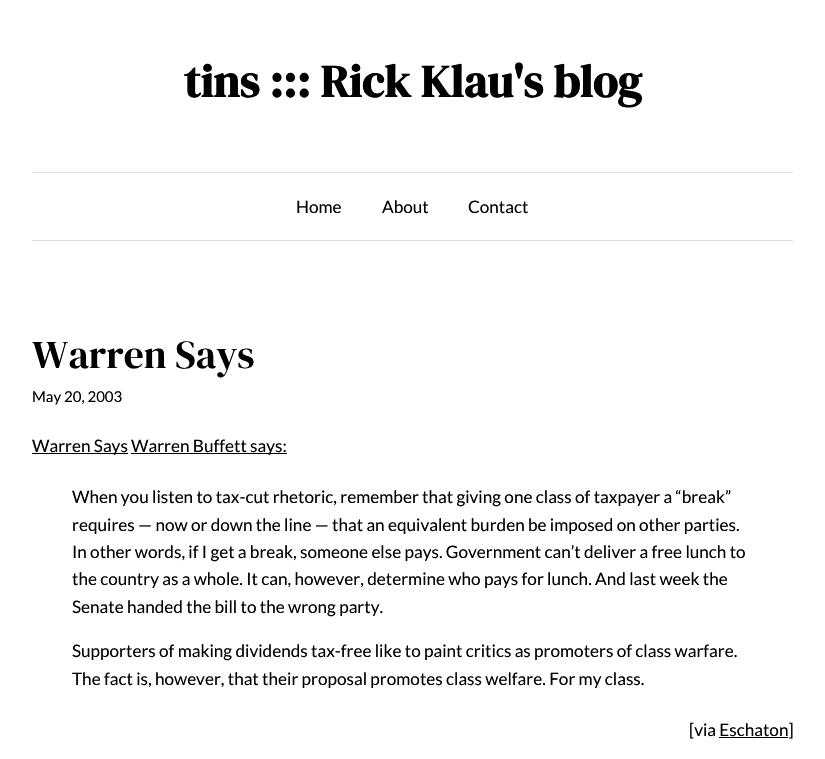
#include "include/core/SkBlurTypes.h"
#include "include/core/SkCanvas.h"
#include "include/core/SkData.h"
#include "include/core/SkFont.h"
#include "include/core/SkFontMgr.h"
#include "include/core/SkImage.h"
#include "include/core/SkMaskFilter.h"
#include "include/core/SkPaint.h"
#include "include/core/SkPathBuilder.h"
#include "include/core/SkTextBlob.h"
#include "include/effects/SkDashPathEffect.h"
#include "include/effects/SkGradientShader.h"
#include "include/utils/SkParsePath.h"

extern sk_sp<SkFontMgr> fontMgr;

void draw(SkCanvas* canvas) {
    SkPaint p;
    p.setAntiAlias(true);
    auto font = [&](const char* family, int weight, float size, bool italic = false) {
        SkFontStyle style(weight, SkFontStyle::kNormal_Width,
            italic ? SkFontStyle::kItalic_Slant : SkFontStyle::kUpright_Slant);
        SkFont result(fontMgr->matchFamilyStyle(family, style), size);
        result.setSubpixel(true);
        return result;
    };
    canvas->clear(0xFFFFFFFF);
    auto font1 = font("DM Serif Display", 700, 45.6f);
    p.setColor(0xFF000000);
    canvas->drawString("tins ::: Rick Klau's blog", 184, 97, font1, p);
    p.setColor(0xFFDEDEDE);
    canvas->drawRect(SkRect::MakeLTRB(32, 172, 793, 173), p);
    canvas->drawRect(SkRect::MakeLTRB(32, 240, 793, 241), p);
    auto font2 = font("Lato", 400, 17.15f);
    p.setColor(0xFF000000);
    {
        const struct { const char* s; float x, y; } items[] = {
            {"Home", 296, 213},
            {"About", 382, 213},
            {"Contact", 468, 213},
        };
        for (auto [s, x, y] : items) {
            canvas->drawString(s, x, y, font2, p);
        }
    }
    auto font3 = font("DM Serif Display", 400, 39.5f);
    canvas->drawString("Warren Says", 32, 368, font3, p);
    auto font4 = font("Lato", 400, 15);
    canvas->drawString("May 20, 2003", 32, 402, font4, p);
    canvas->drawRect(SkRect::MakeLTRB(32, 453, 128, 454), p);
    canvas->drawString("Warren Says", 32, 452, font2, p);
    canvas->drawRect(SkRect::MakeLTRB(131, 453, 287, 454), p);
    {
        const struct { const char* s; float x, y; } items[] = {
            {"Warren Buffett says:", 131, 452},
            {"When you listen to tax-cut rhetoric, remember that giving one class of taxpayer a “break”", 72, 503},
            {"requires — now or down the line — that an equivalent burden be imposed on other parties.", 72, 531},
            {"In other words, if I get a break, someone else pays. Government can’t deliver a free lunch to", 72, 558},
            {"the country as a whole. It can, however, determine who pays for lunch. And last week the", 72, 585},
            {"Senate handed the bill to the wrong party.", 72, 613},
            {"Supporters of making dividends tax-free like to paint critics as promoters of class warfare.", 72, 657},
            {"The fact is, however, that their proposal promotes class welfare. For my class.", 72, 685},
            {"[via Eschaton]", 689, 736},
        };
        for (auto [s, x, y] : items) {
            canvas->drawString(s, x, y, font2, p);
        }
    }
    canvas->drawRect(SkRect::MakeLTRB(719, 737, 788, 738), p);
}
